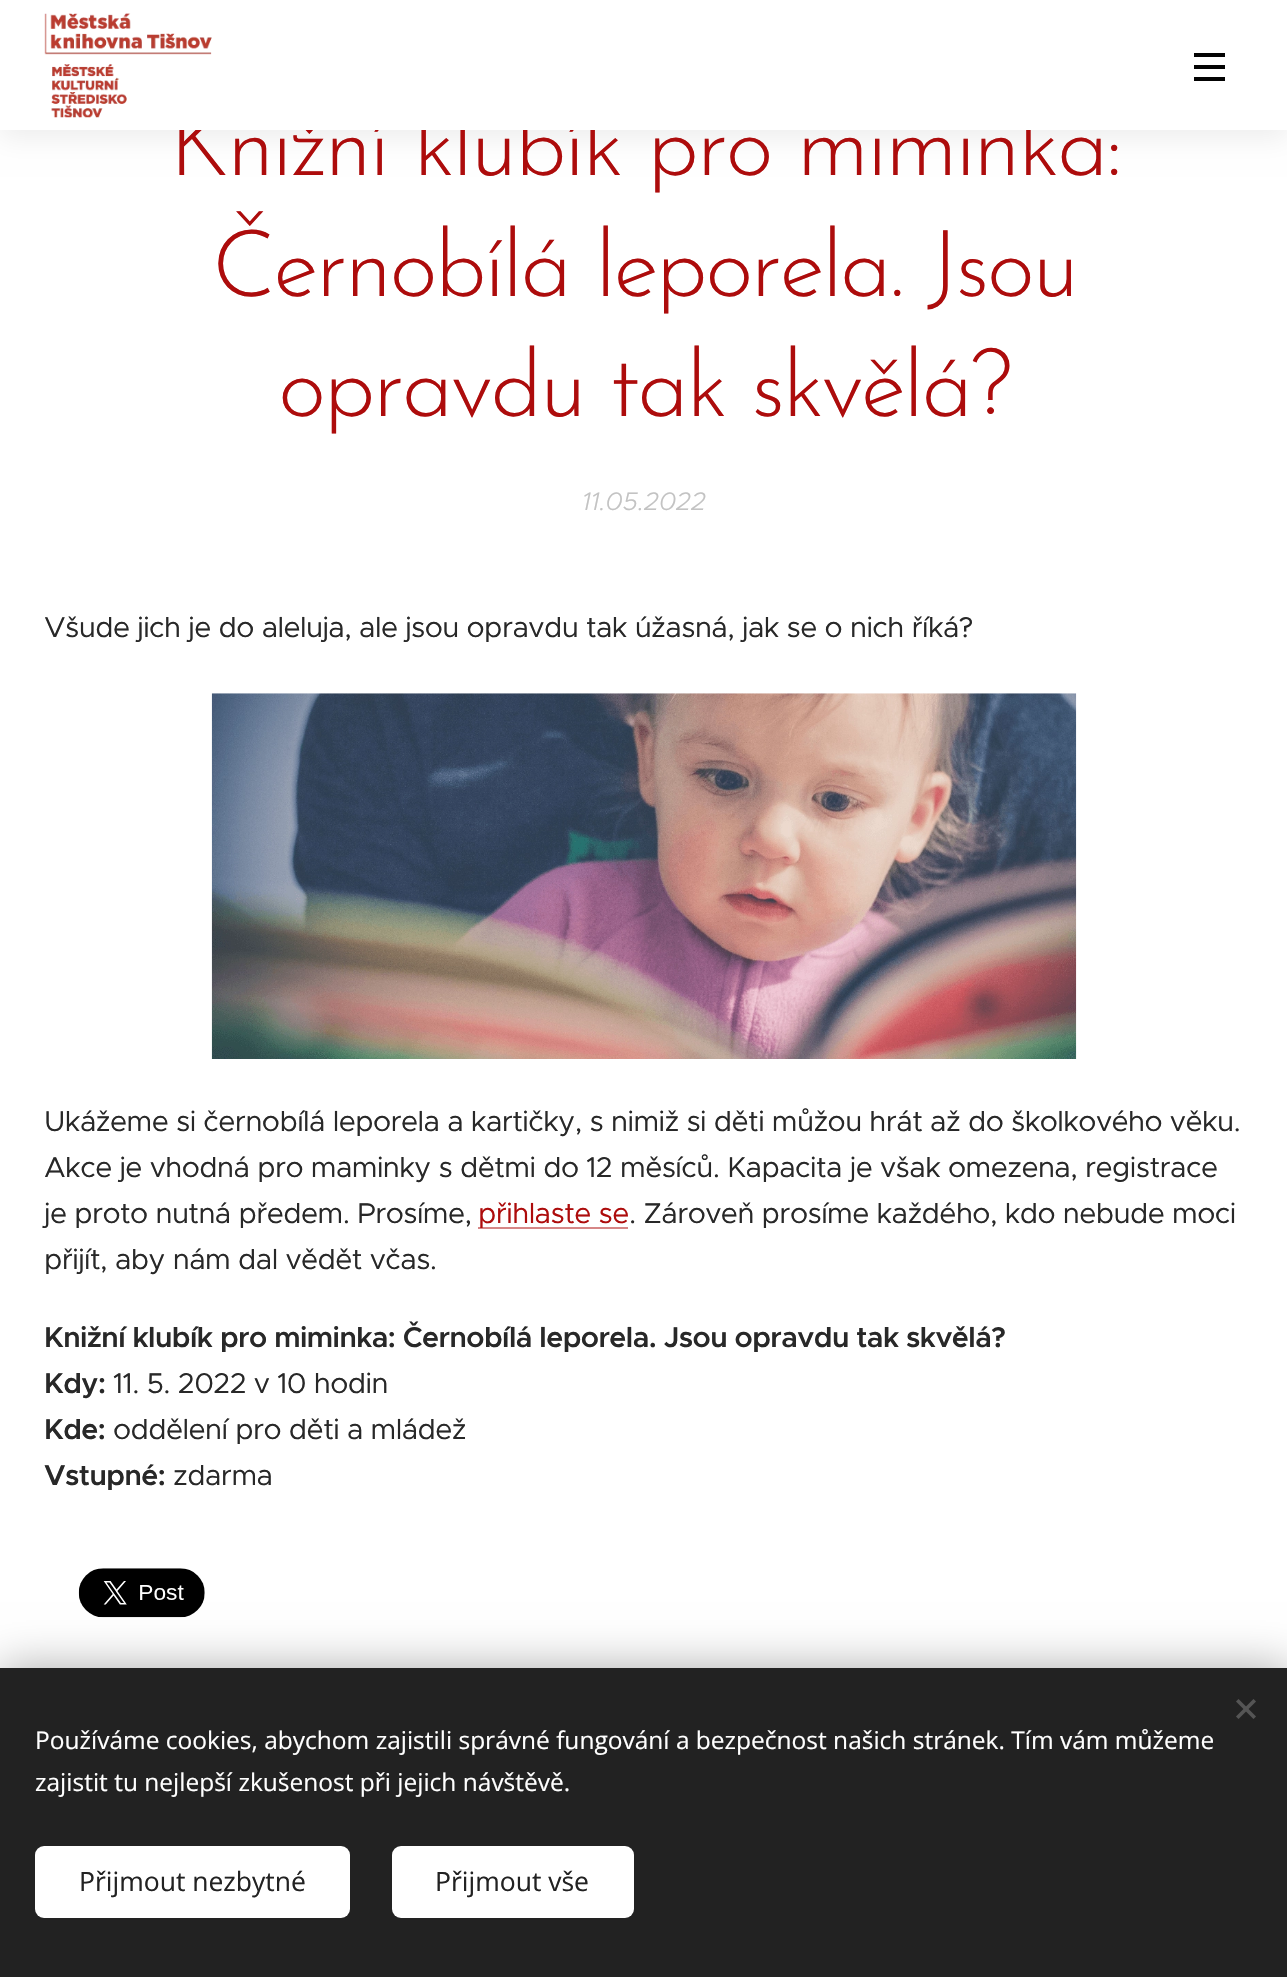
#include "include/core/SkBlurTypes.h"
#include "include/core/SkCanvas.h"
#include "include/core/SkData.h"
#include "include/core/SkFont.h"
#include "include/core/SkFontMgr.h"
#include "include/core/SkImage.h"
#include "include/core/SkMaskFilter.h"
#include "include/core/SkPaint.h"
#include "include/core/SkPathBuilder.h"
#include "include/core/SkTextBlob.h"
#include "include/effects/SkDashPathEffect.h"
#include "include/effects/SkGradientShader.h"
#include "include/utils/SkParsePath.h"

extern sk_sp<SkFontMgr> fontMgr;

void draw(SkCanvas* canvas) {
    SkPaint p;
    p.setAntiAlias(true);
    auto font = [&](const char* family, int weight, float size, bool italic = false) {
        SkFontStyle style(weight, SkFontStyle::kNormal_Width,
            italic ? SkFontStyle::kItalic_Slant : SkFontStyle::kUpright_Slant);
        SkFont result(fontMgr->matchFamilyStyle(family, style), size);
        result.setSubpixel(true);
        return result;
    };
    auto drawTracked = [&](const char* s, float x, float y, const SkFont& font, const SkPaint& ink, float letter, float word) {
        std::vector<SkGlyphID> glyphs(font.countText(s, strlen(s), SkTextEncoding::kUTF8));
        std::vector<float> xs(glyphs.size());
        font.textToGlyphs(s, strlen(s), SkTextEncoding::kUTF8, glyphs);
        font.getXPos(glyphs, xs, x);
        float extra = 0;
        for (size_t i = 0; i < glyphs.size(); i++) {
            xs[i] += extra;
            extra += letter + word * (glyphs[i] == font.unicharToGlyph(' '));
        }
        canvas->drawTextBlob(SkTextBlob::MakeFromPosHGlyphs(glyphs, xs, y, font), 0, 0, ink);
    };
    auto drawPhoto = [&](const char* path, float l, float t, float r, float b) {
        auto image = SkImages::DeferredFromEncodedData(SkData::MakeFromFileName(path));
        canvas->drawImageRect(image, SkRect::MakeLTRB(l, t, r, b), SkSamplingOptions());
    };
    canvas->clear(0xFFFFFFFF);
    p.setColor(0x12000000);
    p.setMaskFilter(SkMaskFilter::MakeBlur(kNormal_SkBlurStyle, 13));
    canvas->drawRect(SkRect::MakeLTRB(0, 9, 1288, 138), p);
    p.setMaskFilter(nullptr);
    auto font1 = font("Josefin Sans", 300, 92.75f);
    p.setColor(0xFFAD0C0C);
    drawTracked("Knižní klubík pro miminka:", 169, 175, font1, p, -2.75f, 0);
    p.setColor(0xFFFFFFFF);
    canvas->drawRect(SkRect::MakeLTRB(0, 0, 1287, 130), p);
    drawPhoto("media/1.png", 44, 13, 212, 118);
    {
        const struct { float l, t, r, b; SkColor color; } items[] = {
            {1194, 65, 1225, 69, 0xFF030303},
            {1194, 53, 1225, 57, 0xFF030303},
            {1194, 77, 1225, 81, 0xFF030303},
        };
        for (auto [l, t, r, b, color] : items) {
            p.setColor(color);
            canvas->drawRect(SkRect::MakeLTRB(l, t, r, b), p);
        }
    }
    p.setColor(0xFFAD0C0C);
    drawTracked("Černobílá leporela. Jsou", 212, 296, font1, p, -2.75f, 0);
    drawTracked("opravdu tak skvělá?", 278, 416, font1, p, -2.75f, 0);
    auto font2 = font("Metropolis", 300, 25.5f, true);
    p.setColor(0xFFC3C3C3);
    canvas->drawString("11.05.2022", 582, 510, font2, p);
    auto font3 = font("Metropolis", 400, 28.7f);
    p.setColor(0xFF282828);
    drawTracked("Všude jich je do aleluja, ale jsou opravdu tak úžasná, jak se o nich říká?", 44, 637, font3, p, -0.55f, 0);
    drawPhoto("media/2.png", 211, 693, 1077, 1059);
    {
        const struct { const char* s; float x, y; } items[] = {
            {"Ukážeme si černobílá leporela a kartičky, s nimiž si děti můžou hrát až do školkového věku.", 44, 1131},
            {"Akce je vhodná pro maminky s dětmi do 12 měsíců. Kapacita je však omezena, registrace", 44, 1177},
            {"je proto nutná předem. Prosíme,", 44, 1223},
        };
        for (auto [s, x, y] : items) {
            drawTracked(s, x, y, font3, p, -0.55f, 0);
        }
    }
    p.setColor(0xFFD68686);
    canvas->drawRect(SkRect::MakeLTRB(478, 1227, 628, 1229), p);
    p.setColor(0xFFAD0C0C);
    drawTracked("přihlaste se", 478, 1223, font3, p, -0.55f, 0);
    p.setColor(0xFF282828);
    drawTracked(". Zároveň prosíme každého, kdo nebude moci", 629, 1223, font3, p, -0.55f, 0);
    drawTracked("přijít, aby nám dal vědět včas.", 44, 1269, font3, p, -0.55f, 0);
    auto font4 = font("Metropolis", 600, 28.7f);
    drawTracked("Knižní klubík pro miminka: Černobílá leporela. Jsou opravdu tak skvělá?", 44, 1347, font4, p, -0.55f, 0);
    drawTracked("Kdy:", 44, 1393, font4, p, -0.55f, 0);
    drawTracked("11. 5. 2022 v 10 hodin", 113, 1393, font3, p, -0.55f, 0);
    drawTracked("Kde:", 44, 1439, font4, p, -0.55f, 0);
    drawTracked("oddělení pro děti a mládež", 113, 1439, font3, p, -0.55f, 0);
    drawTracked("Vstupné:", 44, 1485, font4, p, -0.55f, 0);
    drawTracked("zdarma", 173, 1485, font3, p, -0.55f, 0);
    drawPhoto("media/3.png", 78, 1568, 205, 1618);
    p.setColor(0x54000000);
    p.setMaskFilter(SkMaskFilter::MakeBlur(kNormal_SkBlurStyle, 22));
    canvas->drawRect(SkRect::MakeLTRB(0, 1668, 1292, 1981), p);
    p.setMaskFilter(nullptr);
    p.setColor(0xFF222222);
    canvas->drawRect(SkRect::MakeLTRB(0, 1668, 1287, 1977), p);
    p.setColor(0xFF555555);
    canvas->drawPath(SkPathBuilder().moveTo(1236, 1716.5f).lineTo(1253.5f, 1699).lineTo(1256, 1701.5f).lineTo(1238.5f, 1719).close().detach(), p);
    canvas->drawPath(SkPathBuilder().moveTo(1238.5f, 1699).lineTo(1256, 1716.5f).lineTo(1253.5f, 1719).lineTo(1236, 1701.5f).close().detach(), p);
    auto font5 = font("Open Sans", 400, 24.5f);
    p.setColor(0xFFFFFFFF);
    canvas->drawString("Používáme cookies, abychom zajistili správné fungování a bezpečnost našich stránek. Tím vám můžeme", 35, 1749, font5, p);
    canvas->drawString("zajistit tu nejlepší zkušenost při jejich návštěvě.", 35, 1791, font5, p);
    canvas->drawRoundRect(SkRect::MakeLTRB(35, 1846, 350, 1918), 9, 9, p);
    auto font6 = font("Open Sans", 400, 26.5f);
    p.setColor(0xFF222222);
    canvas->drawString("Přijmout nezbytné", 79, 1891, font6, p);
    p.setColor(0xFFFFFFFF);
    canvas->drawRoundRect(SkRect::MakeLTRB(392, 1846, 634, 1918), 9, 9, p);
    p.setColor(0xFF222222);
    canvas->drawString("Přijmout vše", 435, 1891, font6, p);
}
